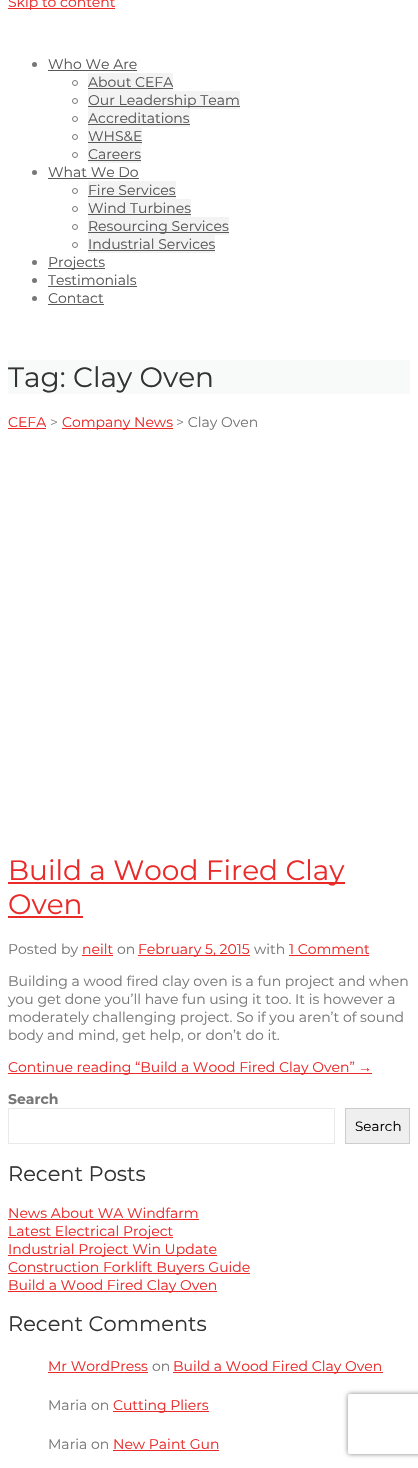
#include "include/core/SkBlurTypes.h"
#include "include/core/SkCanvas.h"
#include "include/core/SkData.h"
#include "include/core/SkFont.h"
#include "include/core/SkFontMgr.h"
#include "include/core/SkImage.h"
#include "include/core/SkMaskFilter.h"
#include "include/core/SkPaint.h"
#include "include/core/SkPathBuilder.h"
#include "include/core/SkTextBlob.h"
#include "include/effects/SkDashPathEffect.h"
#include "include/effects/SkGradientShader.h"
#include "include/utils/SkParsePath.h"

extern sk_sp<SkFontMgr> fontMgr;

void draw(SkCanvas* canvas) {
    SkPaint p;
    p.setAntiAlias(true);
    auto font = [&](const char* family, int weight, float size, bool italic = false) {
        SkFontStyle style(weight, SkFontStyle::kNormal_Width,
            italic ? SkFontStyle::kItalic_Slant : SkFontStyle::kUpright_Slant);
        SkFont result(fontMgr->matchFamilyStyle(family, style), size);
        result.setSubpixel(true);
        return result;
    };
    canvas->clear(0xFFFFFFFF);
    p.setColor(0xFFE92A29);
    canvas->drawRect(SkRect::MakeLTRB(8, 8, 115, 9), p);
    auto font1 = font("Montserrat", 400, 14);
    canvas->drawString("Skip to content", 8, 7, font1, p);
    p.setColor(0xFF777777);
    canvas->drawCircle(34.5f, 64.5f, 2.5f, p);
    p.setColor(0xFF58585A);
    canvas->drawString("Who We Are", 48, 69, font1, p);
    canvas->drawRect(SkRect::MakeLTRB(48, 70, 137, 71), p);
    p.setStyle(SkPaint::kStroke_Style);
    p.setStrokeWidth(1);
    p.setColor(0xFF777777);
    canvas->drawCircle(75, 83, 2.5f, p);
    p.setStyle(SkPaint::kFill_Style);
    p.setColor(0xFFF3F3F3);
    canvas->drawRect(SkRect::MakeLTRB(88, 73, 173, 91), p);
    p.setColor(0xFF58585A);
    canvas->drawString("About CEFA", 88, 87, font1, p);
    canvas->drawRect(SkRect::MakeLTRB(88, 88, 173, 89), p);
    p.setStyle(SkPaint::kStroke_Style);
    p.setColor(0xFF777777);
    canvas->drawCircle(75, 101, 2.5f, p);
    p.setStyle(SkPaint::kFill_Style);
    p.setColor(0xFFF3F3F3);
    canvas->drawRect(SkRect::MakeLTRB(88, 91, 240, 109), p);
    p.setColor(0xFF58585A);
    canvas->drawRect(SkRect::MakeLTRB(88, 106, 240, 107), p);
    canvas->drawString("Our Leadership Team", 88, 105, font1, p);
    p.setStyle(SkPaint::kStroke_Style);
    p.setColor(0xFF777777);
    canvas->drawCircle(75, 119, 2.5f, p);
    p.setStyle(SkPaint::kFill_Style);
    p.setColor(0xFFF3F3F3);
    canvas->drawRect(SkRect::MakeLTRB(88, 109, 190, 127), p);
    p.setColor(0xFF58585A);
    canvas->drawString("Accreditations", 88, 123, font1, p);
    canvas->drawRect(SkRect::MakeLTRB(88, 124, 190, 125), p);
    p.setStyle(SkPaint::kStroke_Style);
    p.setColor(0xFF777777);
    canvas->drawCircle(75, 137, 2.5f, p);
    p.setStyle(SkPaint::kFill_Style);
    p.setColor(0xFFF3F3F3);
    canvas->drawRect(SkRect::MakeLTRB(88, 127, 142, 145), p);
    p.setColor(0xFF58585A);
    canvas->drawString("WHS&E", 88, 141, font1, p);
    canvas->drawRect(SkRect::MakeLTRB(88, 142, 142, 143), p);
    p.setStyle(SkPaint::kStroke_Style);
    p.setColor(0xFF777777);
    canvas->drawCircle(75, 155, 2.5f, p);
    p.setStyle(SkPaint::kFill_Style);
    p.setColor(0xFFF3F3F3);
    canvas->drawRect(SkRect::MakeLTRB(88, 145, 141, 163), p);
    p.setColor(0xFF58585A);
    canvas->drawString("Careers", 88, 159, font1, p);
    canvas->drawRect(SkRect::MakeLTRB(88, 160, 141, 161), p);
    p.setColor(0xFF777777);
    canvas->drawCircle(34.5f, 172.5f, 2.5f, p);
    p.setColor(0xFF58585A);
    canvas->drawString("What We Do", 48, 177, font1, p);
    canvas->drawRect(SkRect::MakeLTRB(48, 178, 139, 179), p);
    p.setStyle(SkPaint::kStroke_Style);
    p.setColor(0xFF777777);
    canvas->drawCircle(75, 191, 2.5f, p);
    p.setStyle(SkPaint::kFill_Style);
    p.setColor(0xFFF3F3F3);
    canvas->drawRect(SkRect::MakeLTRB(88, 181, 176, 199), p);
    p.setColor(0xFF58585A);
    canvas->drawString("Fire Services", 88, 195, font1, p);
    canvas->drawRect(SkRect::MakeLTRB(88, 196, 176, 197), p);
    p.setStyle(SkPaint::kStroke_Style);
    p.setColor(0xFF777777);
    canvas->drawCircle(75, 209, 2.5f, p);
    p.setStyle(SkPaint::kFill_Style);
    p.setColor(0xFFF3F3F3);
    canvas->drawRect(SkRect::MakeLTRB(88, 199, 191, 217), p);
    p.setColor(0xFF58585A);
    canvas->drawString("Wind Turbines", 88, 213, font1, p);
    canvas->drawRect(SkRect::MakeLTRB(88, 214, 191, 215), p);
    p.setStyle(SkPaint::kStroke_Style);
    p.setColor(0xFF777777);
    canvas->drawCircle(75, 227, 2.5f, p);
    p.setStyle(SkPaint::kFill_Style);
    p.setColor(0xFFF3F3F3);
    canvas->drawRect(SkRect::MakeLTRB(88, 217, 229, 235), p);
    p.setColor(0xFF58585A);
    canvas->drawRect(SkRect::MakeLTRB(88, 232, 229, 233), p);
    canvas->drawString("Resourcing Services", 88, 231, font1, p);
    p.setStyle(SkPaint::kStroke_Style);
    p.setColor(0xFF777777);
    canvas->drawCircle(75, 245, 2.5f, p);
    p.setStyle(SkPaint::kFill_Style);
    p.setColor(0xFFF3F3F3);
    canvas->drawRect(SkRect::MakeLTRB(88, 235, 215, 253), p);
    p.setColor(0xFF58585A);
    canvas->drawString("Industrial Services", 88, 249, font1, p);
    canvas->drawRect(SkRect::MakeLTRB(88, 250, 215, 251), p);
    p.setColor(0xFF777777);
    canvas->drawCircle(34.5f, 262.5f, 2.5f, p);
    p.setColor(0xFF58585A);
    canvas->drawRect(SkRect::MakeLTRB(48, 268, 105, 269), p);
    canvas->drawString("Projects", 48, 267, font1, p);
    p.setColor(0xFF777777);
    canvas->drawCircle(34.5f, 280.5f, 2.5f, p);
    p.setColor(0xFF58585A);
    canvas->drawString("Testimonials", 48, 285, font1, p);
    canvas->drawRect(SkRect::MakeLTRB(48, 286, 137, 287), p);
    p.setColor(0xFF777777);
    canvas->drawCircle(34.5f, 298.5f, 2.5f, p);
    p.setColor(0xFF58585A);
    canvas->drawString("Contact", 48, 303, font1, p);
    canvas->drawRect(SkRect::MakeLTRB(48, 304, 104, 305), p);
    p.setColor(0xFFF8F9F9);
    canvas->drawRect(SkRect::MakeLTRB(8, 360, 410, 394), p);
    auto font2 = font("Montserrat", 400, 28);
    p.setColor(0xFF333333);
    canvas->drawString("Tag: Clay Oven", 8, 387, font2, p);
    p.setColor(0xFFE92A29);
    canvas->drawString("CEFA", 8, 427, font1, p);
    canvas->drawRect(SkRect::MakeLTRB(8, 428, 46, 429), p);
    p.setColor(0xFF777777);
    canvas->drawString(">", 50, 427, font1, p);
    p.setColor(0xFFE92A29);
    canvas->drawRect(SkRect::MakeLTRB(62, 428, 173, 429), p);
    canvas->drawString("Company News", 62, 427, font1, p);
    p.setColor(0xFF777777);
    canvas->drawString("> Clay Oven", 176, 427, font1, p);
    p.setColor(0xFFE92A29);
    canvas->drawRect(SkRect::MakeLTRB(8, 882, 345, 884), p);
    canvas->drawString("Build a Wood Fired Clay", 8, 880, font2, p);
    canvas->drawString("Oven", 8, 914, font2, p);
    canvas->drawRect(SkRect::MakeLTRB(8, 916, 83, 918), p);
    p.setColor(0xFF777777);
    canvas->drawString("Posted by", 8, 954, font1, p);
    p.setColor(0xFFE92A29);
    canvas->drawString("neilt", 82, 954, font1, p);
    canvas->drawRect(SkRect::MakeLTRB(82, 955, 113, 956), p);
    p.setColor(0xFF777777);
    canvas->drawString("on", 117, 954, font1, p);
    p.setColor(0xFFE92A29);
    canvas->drawRect(SkRect::MakeLTRB(138, 955, 250, 956), p);
    canvas->drawString("February 5, 2015", 138, 954, font1, p);
    p.setColor(0xFF777777);
    canvas->drawString("with", 254, 954, font1, p);
    p.setColor(0xFFE92A29);
    canvas->drawString("1 Comment", 289, 954, font1, p);
    canvas->drawRect(SkRect::MakeLTRB(289, 955, 369, 956), p);
    p.setColor(0xFF777777);
    {
        const struct { const char* s; float x, y; } items[] = {
            {"Building a wood fired clay oven is a fun project and when", 8, 986},
            {"you get done you’ll have fun using it too. It is however a", 8, 1004},
            {"moderately challenging project. So if you aren’t of sound", 8, 1022},
            {"body and mind, get help, or don’t do it.", 8, 1040},
        };
        for (auto [s, x, y] : items) {
            canvas->drawString(s, x, y, font1, p);
        }
    }
    p.setColor(0xFFE92A29);
    canvas->drawRect(SkRect::MakeLTRB(8, 1073, 372, 1074), p);
    canvas->drawString("Continue reading “Build a Wood Fired Clay Oven”", 8, 1072, font1, p);
    auto font3 = font("Liberation Sans", 400, 14);
    canvas->drawString("→", 358, 1072, font3, p);
    auto font4 = font("Montserrat", 700, 14);
    p.setColor(0xFF777777);
    canvas->drawString("Search", 8, 1104, font4, p);
    p.setStyle(SkPaint::kStroke_Style);
    p.setColor(0xFFE9E9E9);
    canvas->drawRect(SkRect::MakeLTRB(8.5f, 1108.5f, 334.5f, 1143.5f), p);
    p.setStyle(SkPaint::kFill_Style);
    p.setColor(0xFFEFEFEF);
    canvas->drawRect(SkRect::MakeLTRB(345.5f, 1108.5f, 409.5f, 1143.5f), p);
    p.setStyle(SkPaint::kStroke_Style);
    p.setColor(0xFFCCCCCC);
    canvas->drawRect(SkRect::MakeLTRB(345.5f, 1108.5f, 409.5f, 1143.5f), p);
    auto font5 = font("Montserrat", 400, 13.5f);
    p.setStyle(SkPaint::kFill_Style);
    p.setColor(0xFF000000);
    canvas->drawString("Search", 355, 1131, font5, p);
    auto font6 = font("Montserrat", 400, 21);
    p.setColor(0xFF333333);
    canvas->drawString("Recent Posts", 8, 1181, font6, p);
    p.setColor(0xFFE92A29);
    canvas->drawString("News About WA Windfarm", 8, 1218, font1, p);
    canvas->drawRect(SkRect::MakeLTRB(8, 1219, 199, 1220), p);
    canvas->drawRect(SkRect::MakeLTRB(8, 1237, 173, 1238), p);
    canvas->drawString("Latest Electrical Project", 8, 1236, font1, p);
    canvas->drawRect(SkRect::MakeLTRB(8, 1255, 217, 1256), p);
    canvas->drawString("Industrial Project Win Update", 8, 1254, font1, p);
    canvas->drawRect(SkRect::MakeLTRB(8, 1273, 250, 1274), p);
    canvas->drawString("Construction Forklift Buyers Guide", 8, 1272, font1, p);
    canvas->drawRect(SkRect::MakeLTRB(8, 1291, 217, 1292), p);
    canvas->drawString("Build a Wood Fired Clay Oven", 8, 1290, font1, p);
    p.setColor(0xFF333333);
    canvas->drawString("Recent Comments", 8, 1331, font6, p);
    p.setColor(0xFFE92A29);
    canvas->drawString("Mr WordPress", 48, 1371, font1, p);
    canvas->drawRect(SkRect::MakeLTRB(48, 1372, 148, 1373), p);
    p.setColor(0xFF777777);
    canvas->drawString("on", 152, 1371, font1, p);
    p.setColor(0xFFE92A29);
    canvas->drawRect(SkRect::MakeLTRB(173, 1372, 383, 1373), p);
    canvas->drawString("Build a Wood Fired Clay Oven", 173, 1371, font1, p);
    p.setColor(0xFF777777);
    canvas->drawString("Maria on", 48, 1410, font1, p);
    p.setColor(0xFFE92A29);
    canvas->drawRect(SkRect::MakeLTRB(113, 1411, 209, 1412), p);
    canvas->drawString("Cutting Pliers", 113, 1410, font1, p);
    p.setColor(0xFF777777);
    canvas->drawString("Maria on", 48, 1449, font1, p);
    p.setColor(0xFFE92A29);
    canvas->drawString("New Paint Gun", 113, 1449, font1, p);
    canvas->drawRect(SkRect::MakeLTRB(113, 1450, 219, 1451), p);
    canvas->save();
    canvas->clipPath(SkPathBuilder(SkPathFillType::kEvenOdd).moveTo(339, 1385).lineTo(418, 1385).lineTo(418, 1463).lineTo(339, 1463).close().moveTo(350, 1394).lineTo(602, 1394).cubicTo(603, 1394, 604, 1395, 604, 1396).lineTo(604, 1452).cubicTo(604, 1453, 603, 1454, 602, 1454).lineTo(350, 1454).cubicTo(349, 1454, 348, 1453, 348, 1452).lineTo(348, 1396).cubicTo(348, 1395, 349, 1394, 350, 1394).close().detach(), true);
    p.setColor(0xFF808080);
    p.setMaskFilter(SkMaskFilter::MakeBlur(kNormal_SkBlurStyle, 2.5f));
    canvas->drawRoundRect(SkRect::MakeLTRB(348, 1394, 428, 1454), 2, 2, p);
    p.setMaskFilter(nullptr);
    canvas->restore();
}
